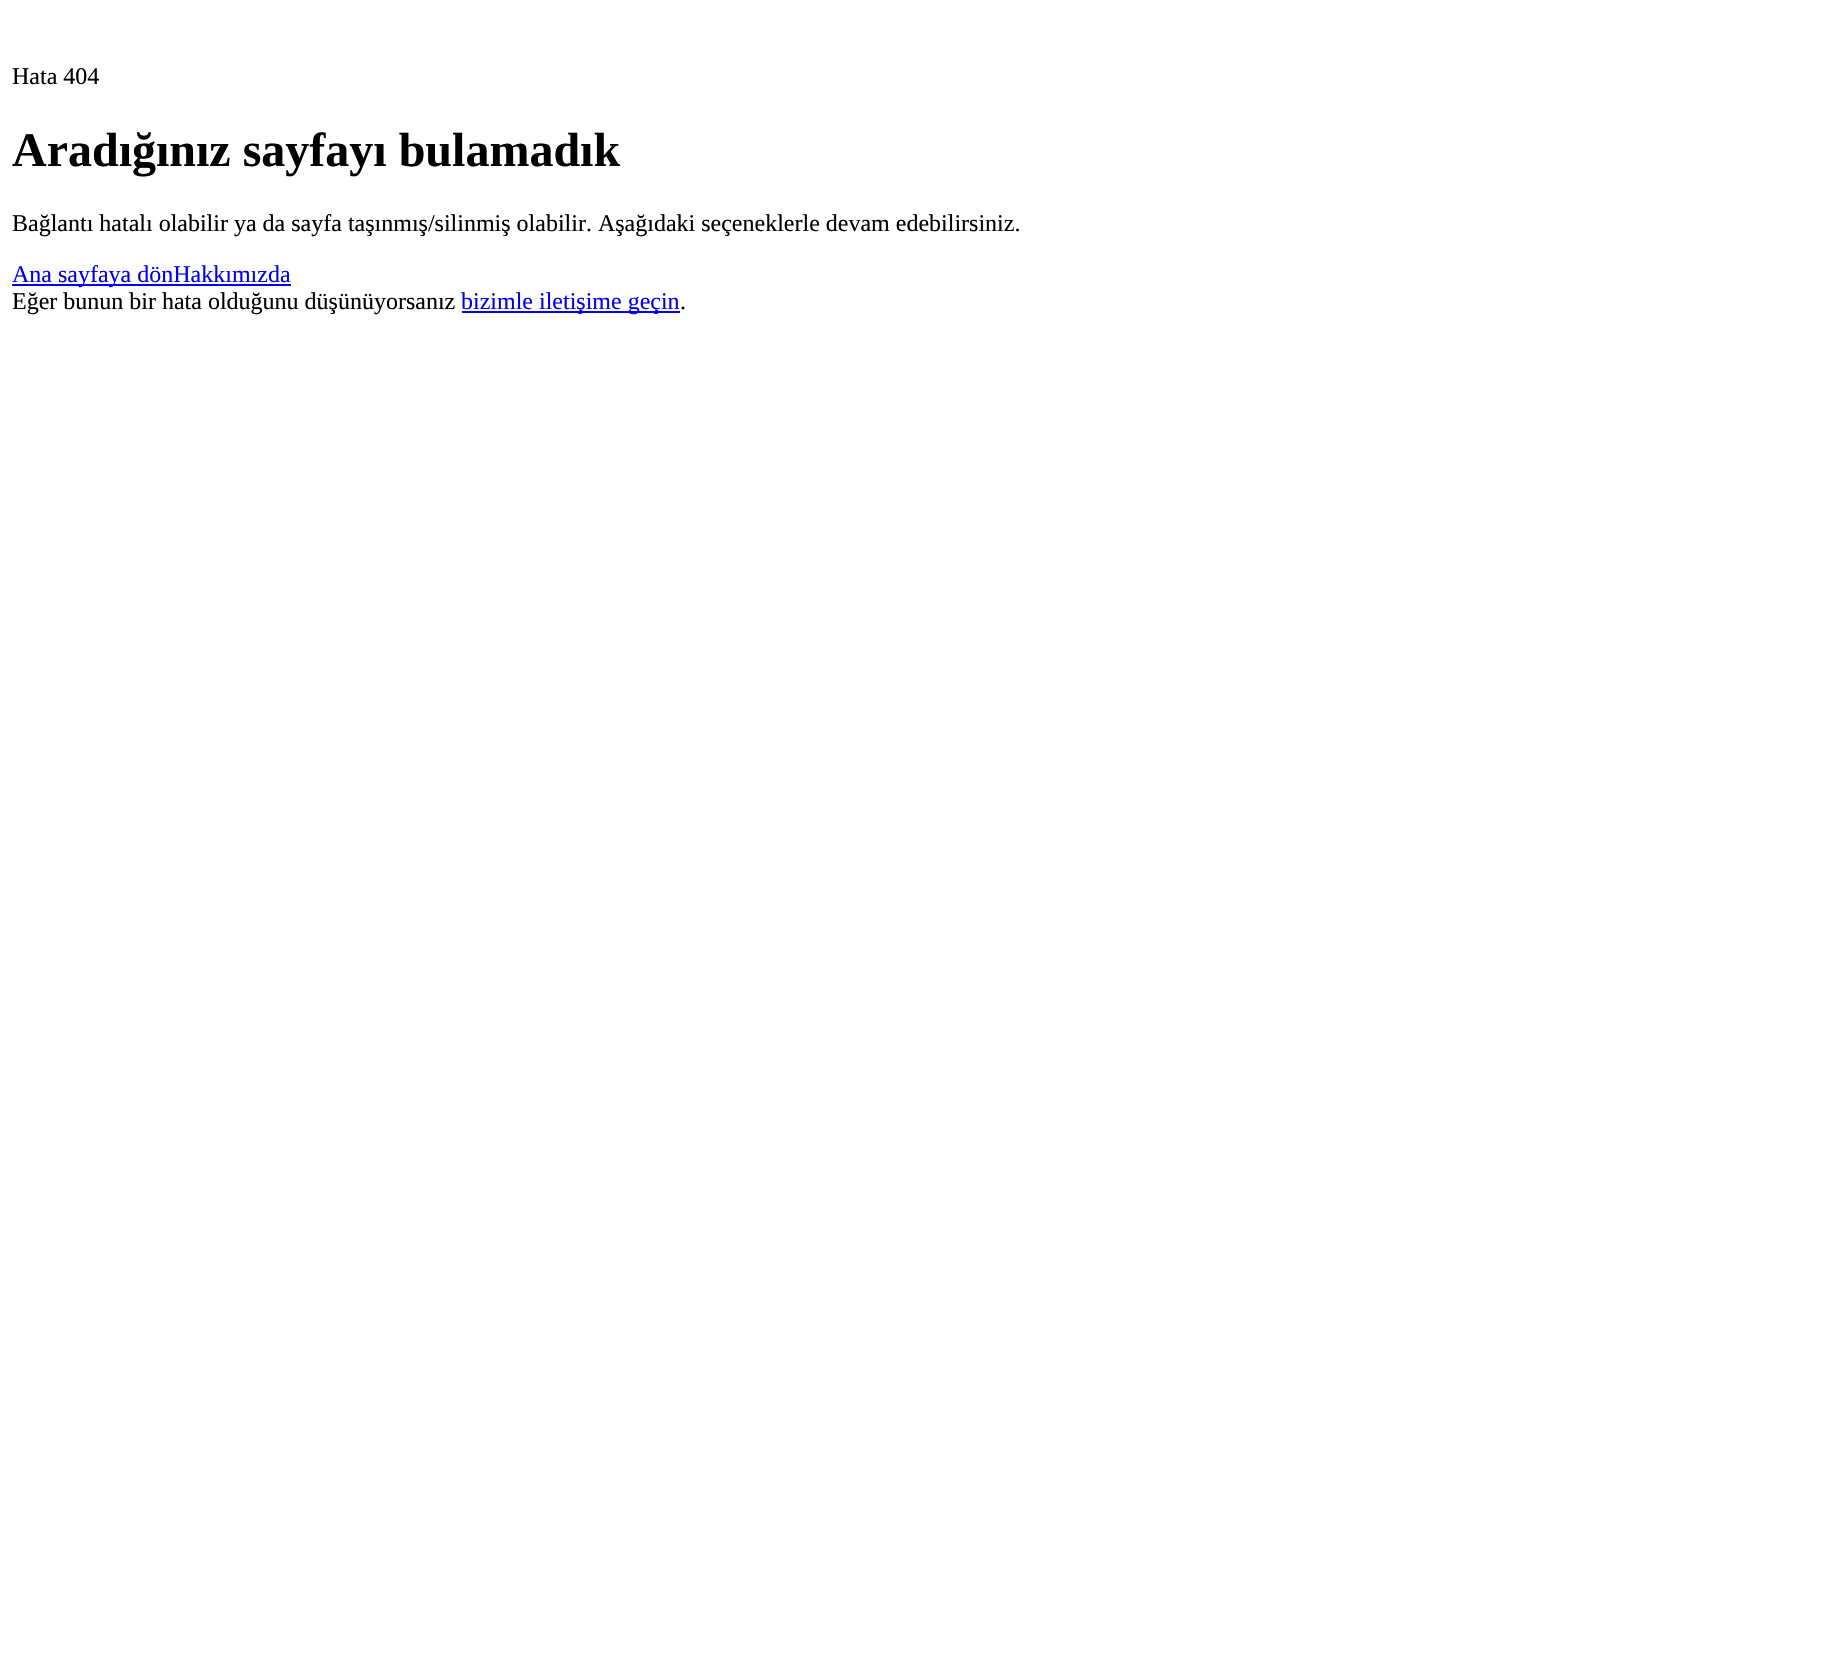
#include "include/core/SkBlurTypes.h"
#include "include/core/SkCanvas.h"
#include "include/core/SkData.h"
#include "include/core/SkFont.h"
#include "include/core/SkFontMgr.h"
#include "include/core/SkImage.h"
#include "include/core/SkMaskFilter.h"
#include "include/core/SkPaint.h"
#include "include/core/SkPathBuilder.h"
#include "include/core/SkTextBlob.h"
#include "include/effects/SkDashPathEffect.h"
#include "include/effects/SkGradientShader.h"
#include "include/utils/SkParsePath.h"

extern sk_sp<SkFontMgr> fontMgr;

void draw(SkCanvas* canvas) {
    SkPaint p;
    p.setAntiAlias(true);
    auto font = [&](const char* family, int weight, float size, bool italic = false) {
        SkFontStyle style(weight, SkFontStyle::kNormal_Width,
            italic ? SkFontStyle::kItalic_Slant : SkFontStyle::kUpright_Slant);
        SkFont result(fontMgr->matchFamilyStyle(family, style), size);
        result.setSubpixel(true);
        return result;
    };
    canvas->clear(0xFFFFFFFF);
    auto font1 = font("Liberation Serif", 400, 24);
    p.setColor(0xFF000000);
    canvas->drawString("Hata 404", 12, 84, font1, p);
    auto font2 = font("Liberation Serif", 700, 48);
    canvas->drawString("Aradığınız sayfayı bulamadık", 12, 166, font2, p);
    canvas->drawString("Bağlantı hatalı olabilir ya da sayfa taşınmış/silinmiş olabilir. Aşağıdaki seçeneklerle devam edebilirsiniz.", 12, 231, font1, p);
    p.setColor(0xFF0000EE);
    canvas->drawRect(SkRect::MakeLTRB(12, 284, 291, 286), p);
    canvas->drawString("Ana sayfaya dönHakkımızda", 12, 282, font1, p);
    p.setColor(0xFF000000);
    canvas->drawString("Eğer bunun bir hata olduğunu düşünüyorsanız", 12, 309, font1, p);
    p.setColor(0xFF0000EE);
    canvas->drawRect(SkRect::MakeLTRB(462, 311, 680, 313), p);
    canvas->drawString("bizimle iletişime geçin", 461, 309, font1, p);
    p.setColor(0xFF000000);
    canvas->drawString(".", 680, 309, font1, p);
}
